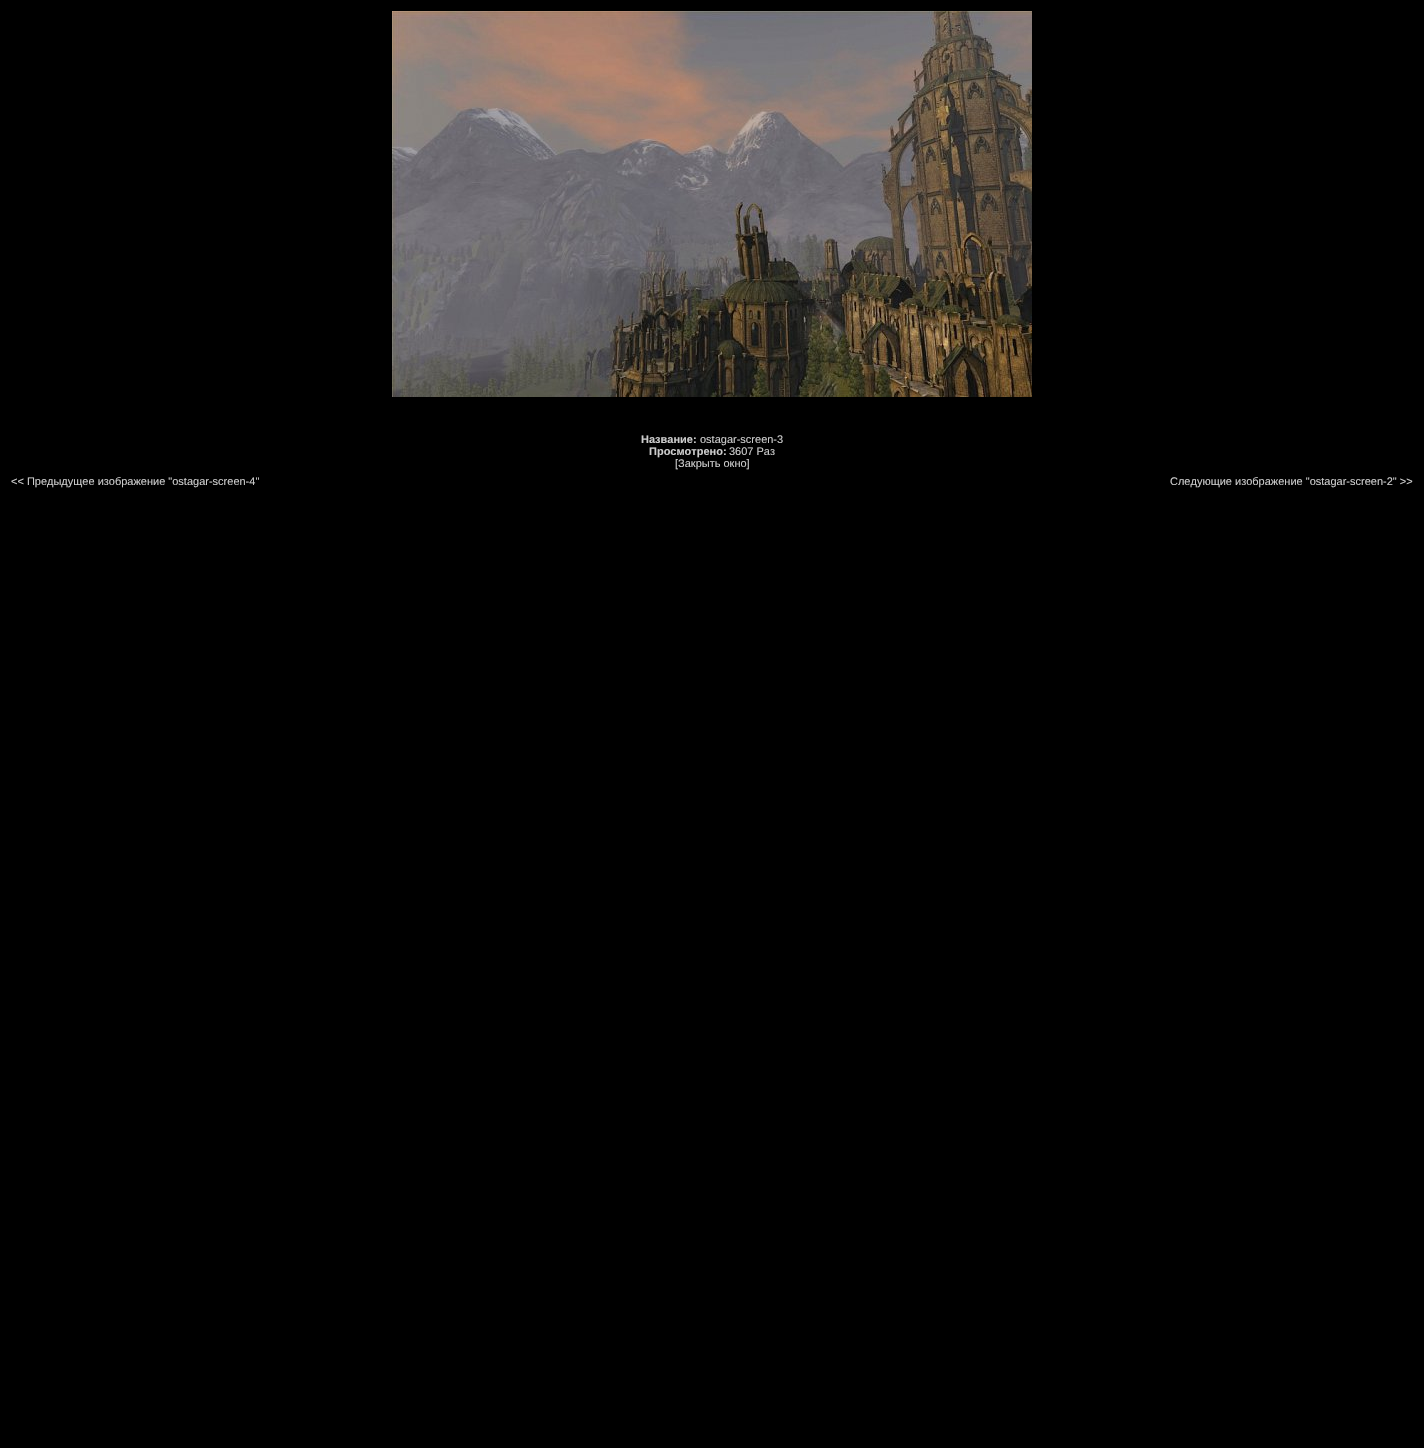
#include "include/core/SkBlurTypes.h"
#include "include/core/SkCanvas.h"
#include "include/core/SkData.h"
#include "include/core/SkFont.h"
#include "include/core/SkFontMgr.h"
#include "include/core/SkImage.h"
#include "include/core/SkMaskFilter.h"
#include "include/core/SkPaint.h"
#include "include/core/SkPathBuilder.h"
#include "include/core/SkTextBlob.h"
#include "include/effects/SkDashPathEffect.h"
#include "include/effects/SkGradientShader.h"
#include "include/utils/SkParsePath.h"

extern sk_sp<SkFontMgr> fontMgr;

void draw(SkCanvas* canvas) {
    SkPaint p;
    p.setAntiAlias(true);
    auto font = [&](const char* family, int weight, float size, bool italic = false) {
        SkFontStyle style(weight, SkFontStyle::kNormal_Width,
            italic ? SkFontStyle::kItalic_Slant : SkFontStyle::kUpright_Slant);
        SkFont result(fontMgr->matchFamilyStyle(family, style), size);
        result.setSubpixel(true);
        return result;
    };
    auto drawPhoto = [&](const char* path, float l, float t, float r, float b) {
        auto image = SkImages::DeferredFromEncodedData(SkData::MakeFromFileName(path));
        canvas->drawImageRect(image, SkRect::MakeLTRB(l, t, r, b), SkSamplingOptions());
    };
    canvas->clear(0xFF000000);
    drawPhoto("media/1.png", 392, 11, 1032, 397);
    auto font1 = font("Liberation Sans", 700, 11);
    p.setColor(0xFFCCCCCC);
    canvas->drawString("Название:", 641, 443, font1, p);
    auto font2 = font("Liberation Sans", 400, 11);
    canvas->drawString("ostagar-screen-3", 700, 443, font2, p);
    canvas->drawString("Просмотрено:", 649, 455, font1, p);
    {
        const struct { const char* s; float x, y; } items[] = {
            {"3607 Раз", 729, 455},
            {"[Закрыть окно]", 675, 467},
            {"<< Предыдущее изображение \"ostagar-screen-4\"", 11, 485},
            {"Следующие изображение \"ostagar-screen-2\" >>", 1170, 485},
        };
        for (auto [s, x, y] : items) {
            canvas->drawString(s, x, y, font2, p);
        }
    }
}
